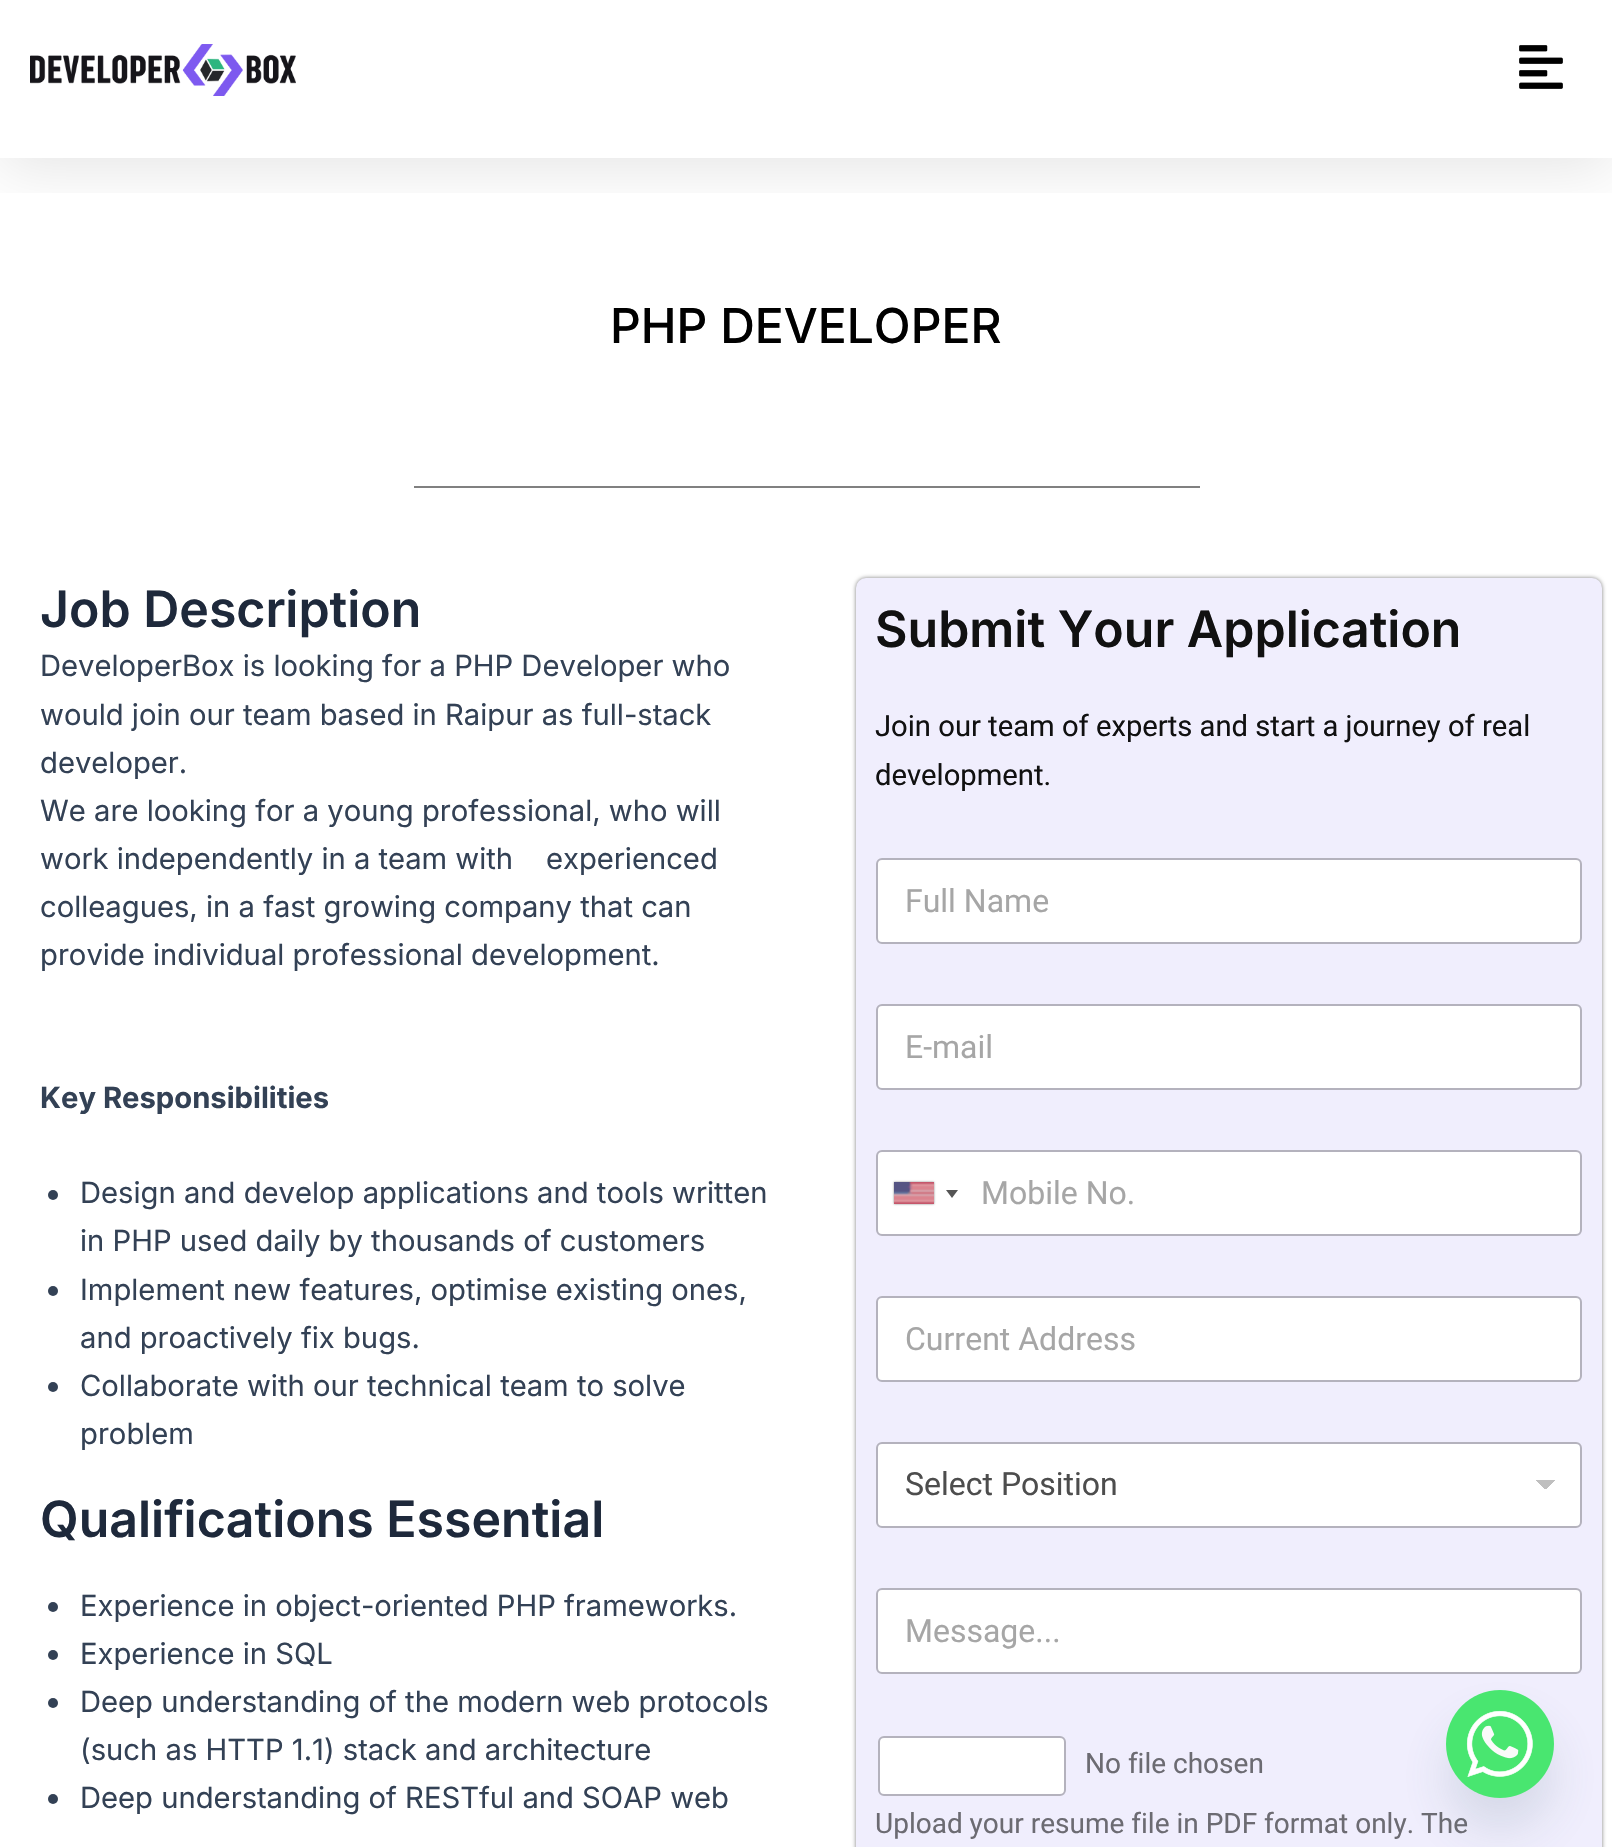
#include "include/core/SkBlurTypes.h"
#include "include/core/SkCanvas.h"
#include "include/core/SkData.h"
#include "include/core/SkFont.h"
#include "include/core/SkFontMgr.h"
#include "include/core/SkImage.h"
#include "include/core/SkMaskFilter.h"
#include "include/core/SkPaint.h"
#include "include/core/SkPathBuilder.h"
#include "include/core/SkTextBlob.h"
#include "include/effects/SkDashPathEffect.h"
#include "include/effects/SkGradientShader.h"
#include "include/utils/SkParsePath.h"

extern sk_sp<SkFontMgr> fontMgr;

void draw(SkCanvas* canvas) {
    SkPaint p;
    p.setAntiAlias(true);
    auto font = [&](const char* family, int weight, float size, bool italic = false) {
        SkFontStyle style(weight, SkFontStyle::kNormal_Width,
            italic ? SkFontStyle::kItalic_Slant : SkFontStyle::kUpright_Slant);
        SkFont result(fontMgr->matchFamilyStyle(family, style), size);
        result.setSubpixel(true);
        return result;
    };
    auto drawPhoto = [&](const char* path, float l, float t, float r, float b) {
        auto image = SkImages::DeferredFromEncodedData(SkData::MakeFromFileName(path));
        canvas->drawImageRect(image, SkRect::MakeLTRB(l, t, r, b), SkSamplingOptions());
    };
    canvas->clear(0xFFFFFFFF);
    canvas->save();
    canvas->clipRect(SkRect::MakeLTRB(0, 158, 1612, 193));
    p.setColor(0x1A000000);
    p.setMaskFilter(SkMaskFilter::MakeBlur(kNormal_SkBlurStyle, 30));
    canvas->drawRect(SkRect::MakeLTRB(0, -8, 1612, 168), p);
    p.setMaskFilter(nullptr);
    canvas->restore();
    drawPhoto("media/1.png", 30, 44, 296, 96);
    drawPhoto("media/2.png", 1519, 45, 1563, 89);
    auto font1 = font("Inter", 500, 48);
    p.setColor(0xFF000000);
    canvas->drawString("PHP DEVELOPER", 610, 343, font1, p);
    p.setColor(0xFF808080);
    canvas->drawRect(SkRect::MakeLTRB(414, 486, 1200, 488), p);
    auto font2 = font("Inter", 600, 50);
    p.setColor(0xFF1E293B);
    canvas->drawString("Job Description", 40, 627, font2, p);
    auto font3 = font("Inter", 400, 29.2f);
    p.setColor(0xFF334155);
    {
        const struct { const char* s; float x, y; } items[] = {
            {"DeveloperBox is looking for a PHP Developer who", 40, 676},
            {"would join our team based in Raipur as full-stack", 40, 725},
            {"developer.", 40, 773},
            {"We are looking for a young professional, who will", 40, 821},
            {"work independently in a team with    experienced", 40, 869},
            {"colleagues, in a fast growing company that can", 40, 917},
            {"provide individual professional development.", 40, 965},
        };
        for (auto [s, x, y] : items) {
            canvas->drawString(s, x, y, font3, p);
        }
    }
    auto font4 = font("Inter", 700, 29.2f);
    canvas->drawString("Key Responsibilities", 40, 1108, font4, p);
    canvas->drawCircle(53, 1195, 5, p);
    canvas->drawString("Design and develop applications and tools written", 80, 1203, font3, p);
    canvas->drawString("in PHP used daily by thousands of customers", 80, 1251, font3, p);
    canvas->drawCircle(53, 1291, 5, p);
    canvas->drawString("Implement new features, optimise existing ones,", 80, 1300, font3, p);
    canvas->drawString("and proactively fix bugs.", 80, 1348, font3, p);
    canvas->drawCircle(53, 1387, 5, p);
    canvas->drawString("Collaborate with our technical team to solve", 80, 1396, font3, p);
    canvas->drawString("problem", 80, 1444, font3, p);
    p.setColor(0xFF1E293B);
    canvas->drawString("Qualifications Essential", 40, 1537, font2, p);
    p.setColor(0xFF334155);
    canvas->drawCircle(53, 1607, 5, p);
    canvas->drawString("Experience in object-oriented PHP frameworks.", 80, 1616, font3, p);
    canvas->drawCircle(53, 1655, 5, p);
    canvas->drawString("Experience in SQL", 80, 1664, font3, p);
    canvas->drawCircle(53, 1703, 5, p);
    canvas->drawString("Deep understanding of the modern web protocols", 80, 1712, font3, p);
    canvas->drawString("(such as HTTP 1.1) stack and architecture", 80, 1760, font3, p);
    canvas->drawCircle(53, 1799, 5, p);
    canvas->drawString("Deep understanding of RESTful and SOAP web", 80, 1808, font3, p);
    p.setColor(0x80000000);
    p.setMaskFilter(SkMaskFilter::MakeBlur(kNormal_SkBlurStyle, 2));
    canvas->drawRoundRect(SkRect::MakeLTRB(856, 578, 1602, 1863), 10, 10, p);
    p.setMaskFilter(nullptr);
    p.setColor(0xFFF0EEFD);
    canvas->drawRoundRect(SkRect::MakeLTRB(856, 578, 1602, 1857), 10, 10, p);
    p.setColor(0xFF111111);
    canvas->drawString("Submit Your Application", 875, 647, font2, p);
    auto font5 = font("Roboto", 400, 29.2f);
    canvas->drawString("Join our team of experts and start a journey of real", 875, 736, font5, p);
    canvas->drawString("development.", 875, 785, font5, p);
    p.setColor(0xFFFFFFFF);
    canvas->drawRoundRect(SkRect::MakeLTRB(878, 860, 1580, 942), 4, 4, p);
    p.setStyle(SkPaint::kStroke_Style);
    p.setStrokeWidth(2);
    p.setColor(0x40000000);
    canvas->drawRoundRect(SkRect::MakeLTRB(877, 859, 1581, 943), 5, 5, p);
    auto font6 = font("Roboto", 400, 32);
    p.setStyle(SkPaint::kFill_Style);
    p.setColor(0xFFA6A6A6);
    canvas->drawString("Full Name", 905, 912, font6, p);
    p.setColor(0xFFFFFFFF);
    canvas->drawRoundRect(SkRect::MakeLTRB(878, 1006, 1580, 1088), 4, 4, p);
    p.setStyle(SkPaint::kStroke_Style);
    p.setColor(0x40000000);
    canvas->drawRoundRect(SkRect::MakeLTRB(877, 1005, 1581, 1089), 5, 5, p);
    p.setStyle(SkPaint::kFill_Style);
    p.setColor(0xFFA6A6A6);
    canvas->drawString("E-mail", 905, 1058, font6, p);
    p.setColor(0xFFFFFFFF);
    canvas->drawRoundRect(SkRect::MakeLTRB(878, 1152, 1580, 1234), 4, 4, p);
    p.setStyle(SkPaint::kStroke_Style);
    p.setColor(0x40000000);
    canvas->drawRoundRect(SkRect::MakeLTRB(877, 1151, 1581, 1235), 5, 5, p);
    p.setStyle(SkPaint::kFill_Style);
    p.setColor(0xFF888888);
    p.setMaskFilter(SkMaskFilter::MakeBlur(kNormal_SkBlurStyle, 1));
    canvas->drawRect(SkRect::MakeLTRB(894, 1182, 934, 1204), p);
    p.setMaskFilter(nullptr);
    drawPhoto("media/3.png", 894, 1182, 934, 1204);
    p.setColor(0xFF555555);
    canvas->drawPath(SkPathBuilder().moveTo(946, 1190).lineTo(958, 1190).lineTo(952, 1198).close().detach(), p);
    p.setColor(0xFFA6A6A6);
    canvas->drawString("Mobile No.", 981, 1204, font6, p);
    p.setColor(0xFFFFFFFF);
    canvas->drawRoundRect(SkRect::MakeLTRB(878, 1298, 1580, 1380), 4, 4, p);
    p.setStyle(SkPaint::kStroke_Style);
    p.setColor(0x40000000);
    canvas->drawRoundRect(SkRect::MakeLTRB(877, 1297, 1581, 1381), 5, 5, p);
    p.setStyle(SkPaint::kFill_Style);
    p.setColor(0xFFA6A6A6);
    canvas->drawString("Current Address", 905, 1350, font6, p);
    p.setColor(0xFFFFFFFF);
    canvas->drawRoundRect(SkRect::MakeLTRB(878, 1444, 1580, 1526), 4, 4, p);
    {
        const SkColor colors[] = {0xFFBFBFBF, 0xFFFFFFFF};
        const float stops[] = {0.5f, 0.5f};
        const SkPoint ends[] = {{1546, 1480}, {1556, 1490}};
        p.setShader(SkGradientShader::MakeLinear(ends, colors, stops, 2, SkTileMode::kClamp));
        p.setAlpha(255);
    }
    canvas->drawRect(SkRect::MakeLTRB(1546, 1480, 1556, 1489), p);
    {
        const SkColor colors[] = {0xFFFFFFFF, 0xFFBFBFBF};
        const float stops[] = {0.5f, 0.5f};
        const SkPoint ends[] = {{1536, 1490}, {1546, 1480}};
        p.setShader(SkGradientShader::MakeLinear(ends, colors, stops, 2, SkTileMode::kClamp));
        p.setAlpha(255);
    }
    canvas->drawRect(SkRect::MakeLTRB(1536, 1480, 1546, 1489), p);
    p.setStyle(SkPaint::kStroke_Style);
    p.setShader(nullptr);
    p.setColor(0x40000000);
    canvas->drawRoundRect(SkRect::MakeLTRB(877, 1443, 1581, 1527), 5, 5, p);
    p.setStyle(SkPaint::kFill_Style);
    p.setColor(0xFF4D4D4D);
    canvas->drawString("Select Position", 905, 1495, font6, p);
    p.setColor(0xFFFFFFFF);
    canvas->drawRoundRect(SkRect::MakeLTRB(878, 1590, 1580, 1672), 4, 4, p);
    p.setStyle(SkPaint::kStroke_Style);
    p.setColor(0x40000000);
    canvas->drawRoundRect(SkRect::MakeLTRB(877, 1589, 1581, 1673), 5, 5, p);
    p.setStyle(SkPaint::kFill_Style);
    p.setColor(0xFFA6A6A6);
    canvas->drawString("Message...", 905, 1642, font6, p);
    p.setColor(0xFFFFFFFF);
    canvas->drawRoundRect(SkRect::MakeLTRB(880, 1738, 1064, 1794), 4, 4, p);
    p.setStyle(SkPaint::kStroke_Style);
    p.setColor(0x40000000);
    canvas->drawRoundRect(SkRect::MakeLTRB(879, 1737, 1065, 1795), 5, 5, p);
    auto font7 = font("Roboto", 400, 28);
    p.setStyle(SkPaint::kFill_Style);
    p.setColor(0xFF6C6B72);
    canvas->drawString("No file chosen", 1085, 1773, font7, p);
    canvas->drawString("Upload your resume file in PDF format only. The", 875, 1833, font7, p);
    p.setColor(0x2949687E);
    p.setMaskFilter(SkMaskFilter::MakeBlur(kNormal_SkBlurStyle, 24));
    canvas->drawRoundRect(SkRect::MakeLTRB(1446, 1722, 1554, 1830), 54, 54, p);
    p.setMaskFilter(nullptr);
    drawPhoto("media/4.png", 1446, 1690, 1554, 1798);
}
